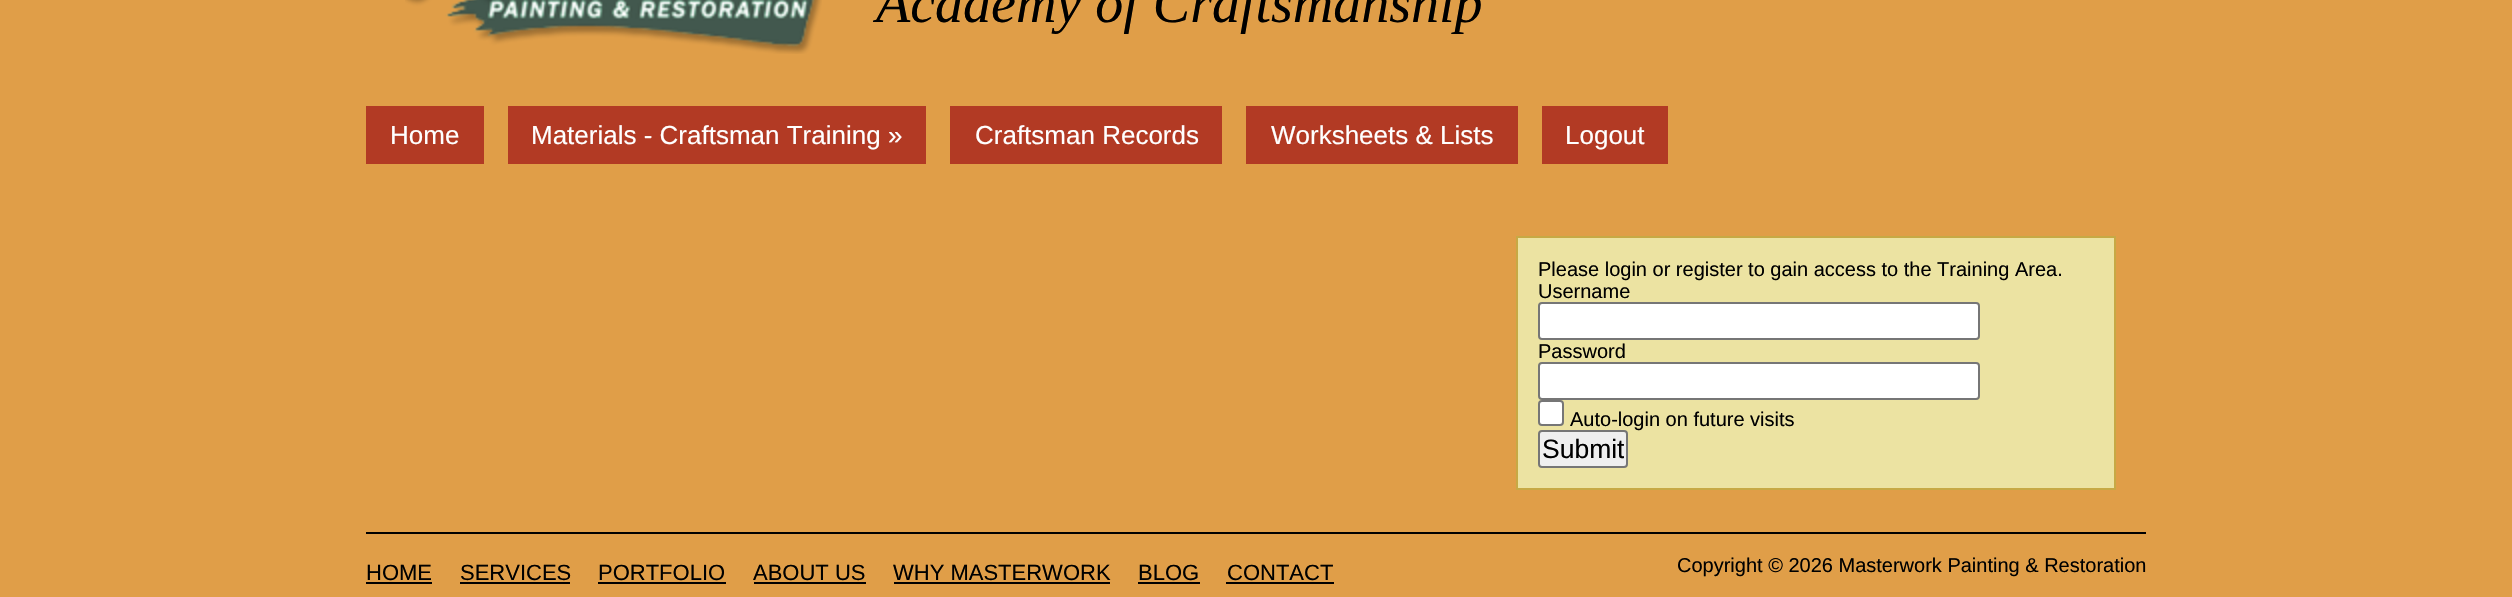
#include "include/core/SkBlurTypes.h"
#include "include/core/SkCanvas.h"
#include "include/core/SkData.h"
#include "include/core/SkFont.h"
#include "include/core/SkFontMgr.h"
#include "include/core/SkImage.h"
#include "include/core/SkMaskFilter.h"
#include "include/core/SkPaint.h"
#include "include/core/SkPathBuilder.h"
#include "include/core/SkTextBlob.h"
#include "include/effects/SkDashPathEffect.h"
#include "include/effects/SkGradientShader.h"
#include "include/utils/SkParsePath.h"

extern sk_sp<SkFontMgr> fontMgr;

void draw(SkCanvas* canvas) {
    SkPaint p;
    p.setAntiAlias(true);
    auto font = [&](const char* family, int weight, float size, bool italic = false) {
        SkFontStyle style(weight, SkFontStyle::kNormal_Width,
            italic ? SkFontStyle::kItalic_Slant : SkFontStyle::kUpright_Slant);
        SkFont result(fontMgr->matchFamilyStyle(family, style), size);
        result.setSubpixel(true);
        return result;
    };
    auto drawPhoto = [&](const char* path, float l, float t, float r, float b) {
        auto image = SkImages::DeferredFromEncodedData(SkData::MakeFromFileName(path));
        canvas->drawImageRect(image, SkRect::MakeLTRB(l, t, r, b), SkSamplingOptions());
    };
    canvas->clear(0xFFE09E48);
    drawPhoto("media/1.png", 405, 0, 822, 54);
    auto font1 = font("Liberation Serif", 400, 56, true);
    p.setColor(0xFF000000);
    canvas->drawString("Academy of Craftsmanship", 876, 22, font1, p);
    p.setColor(0xFFB23A24);
    canvas->drawRect(SkRect::MakeLTRB(366, 106, 484, 164), p);
    auto font2 = font("Liberation Sans", 400, 26);
    p.setColor(0xFFFFFFFF);
    canvas->drawString("Home", 390, 144, font2, p);
    p.setColor(0xFFB23A24);
    canvas->drawRect(SkRect::MakeLTRB(508, 106, 926, 164), p);
    p.setColor(0xFFFFFFFF);
    canvas->drawString("Materials - Craftsman Training »", 531, 144, font2, p);
    p.setColor(0xFFB23A24);
    canvas->drawRect(SkRect::MakeLTRB(950, 106, 1222, 164), p);
    p.setColor(0xFFFFFFFF);
    canvas->drawString("Craftsman Records", 975, 144, font2, p);
    p.setColor(0xFFB23A24);
    canvas->drawRect(SkRect::MakeLTRB(1246, 106, 1518, 164), p);
    p.setColor(0xFFFFFFFF);
    canvas->drawString("Worksheets & Lists", 1271, 144, font2, p);
    p.setColor(0xFFB23A24);
    canvas->drawRect(SkRect::MakeLTRB(1542, 106, 1668, 164), p);
    p.setColor(0xFFFFFFFF);
    canvas->drawString("Logout", 1565, 144, font2, p);
    p.setColor(0xFFECE3A2);
    canvas->drawRect(SkRect::MakeLTRB(1517, 237, 2115, 489), p);
    p.setStyle(SkPaint::kStroke_Style);
    p.setStrokeWidth(2);
    p.setColor(0xFFC7A945);
    canvas->drawRect(SkRect::MakeLTRB(1517, 237, 2115, 489), p);
    auto font3 = font("Liberation Sans", 400, 20);
    p.setStyle(SkPaint::kFill_Style);
    p.setColor(0xFF000000);
    canvas->drawString("Please login or register to gain access to the Training Area.", 1538, 276, font3, p);
    canvas->drawString("Username", 1538, 298, font3, p);
    p.setColor(0xFFFFFFFF);
    canvas->drawRoundRect(SkRect::MakeLTRB(1539, 303, 1979, 339), 3, 3, p);
    p.setStyle(SkPaint::kStroke_Style);
    p.setColor(0xFF767676);
    canvas->drawRoundRect(SkRect::MakeLTRB(1539, 303, 1979, 339), 3, 3, p);
    p.setStyle(SkPaint::kFill_Style);
    p.setColor(0xFF000000);
    canvas->drawString("Password", 1538, 358, font3, p);
    p.setColor(0xFFFFFFFF);
    canvas->drawRoundRect(SkRect::MakeLTRB(1539, 363, 1979, 399), 3, 3, p);
    p.setStyle(SkPaint::kStroke_Style);
    p.setColor(0xFF767676);
    canvas->drawRoundRect(SkRect::MakeLTRB(1539, 363, 1979, 399), 3, 3, p);
    p.setStyle(SkPaint::kFill_Style);
    p.setColor(0xFFFFFFFF);
    canvas->drawRoundRect(SkRect::MakeLTRB(1539, 401, 1563, 425), 3, 3, p);
    p.setStyle(SkPaint::kStroke_Style);
    p.setColor(0xFF767676);
    canvas->drawRoundRect(SkRect::MakeLTRB(1539, 401, 1563, 425), 3, 3, p);
    p.setStyle(SkPaint::kFill_Style);
    p.setColor(0xFF000000);
    canvas->drawString("Auto-login on future visits", 1570, 426, font3, p);
    p.setColor(0xFFEFEFEF);
    canvas->drawRoundRect(SkRect::MakeLTRB(1539, 431, 1627, 467), 3, 3, p);
    p.setStyle(SkPaint::kStroke_Style);
    p.setColor(0xFF767676);
    canvas->drawRoundRect(SkRect::MakeLTRB(1539, 431, 1627, 467), 3, 3, p);
    canvas->save();
    canvas->clipRect(SkRect::MakeLTRB(1542, 434, 1624, 464));
    auto font4 = font("Liberation Sans", 400, 26.5f);
    p.setStyle(SkPaint::kFill_Style);
    p.setColor(0xFF000000);
    canvas->drawString("Submit", 1542, 458, font4, p);
    canvas->restore();
    canvas->drawRect(SkRect::MakeLTRB(366, 532, 2146, 534), p);
    auto font5 = font("Liberation Sans", 400, 22);
    canvas->drawString("HOME", 366, 580, font5, p);
    canvas->drawRect(SkRect::MakeLTRB(366, 582, 432, 584), p);
    canvas->drawString("SERVICES", 460, 580, font5, p);
    canvas->drawRect(SkRect::MakeLTRB(460, 582, 570, 584), p);
    canvas->drawString("PORTFOLIO", 598, 580, font5, p);
    canvas->drawRect(SkRect::MakeLTRB(598, 582, 726, 584), p);
    canvas->drawString("ABOUT US", 753, 580, font5, p);
    canvas->drawRect(SkRect::MakeLTRB(754, 582, 866, 584), p);
    canvas->drawString("WHY MASTERWORK", 893, 580, font5, p);
    canvas->drawRect(SkRect::MakeLTRB(894, 582, 1110, 584), p);
    canvas->drawString("BLOG", 1138, 580, font5, p);
    canvas->drawRect(SkRect::MakeLTRB(1138, 582, 1200, 584), p);
    canvas->drawString("CONTACT", 1227, 580, font5, p);
    canvas->drawRect(SkRect::MakeLTRB(1226, 582, 1334, 584), p);
    canvas->drawString("Copyright © 2026 Masterwork Painting & Restoration", 1677, 572, font3, p);
}
